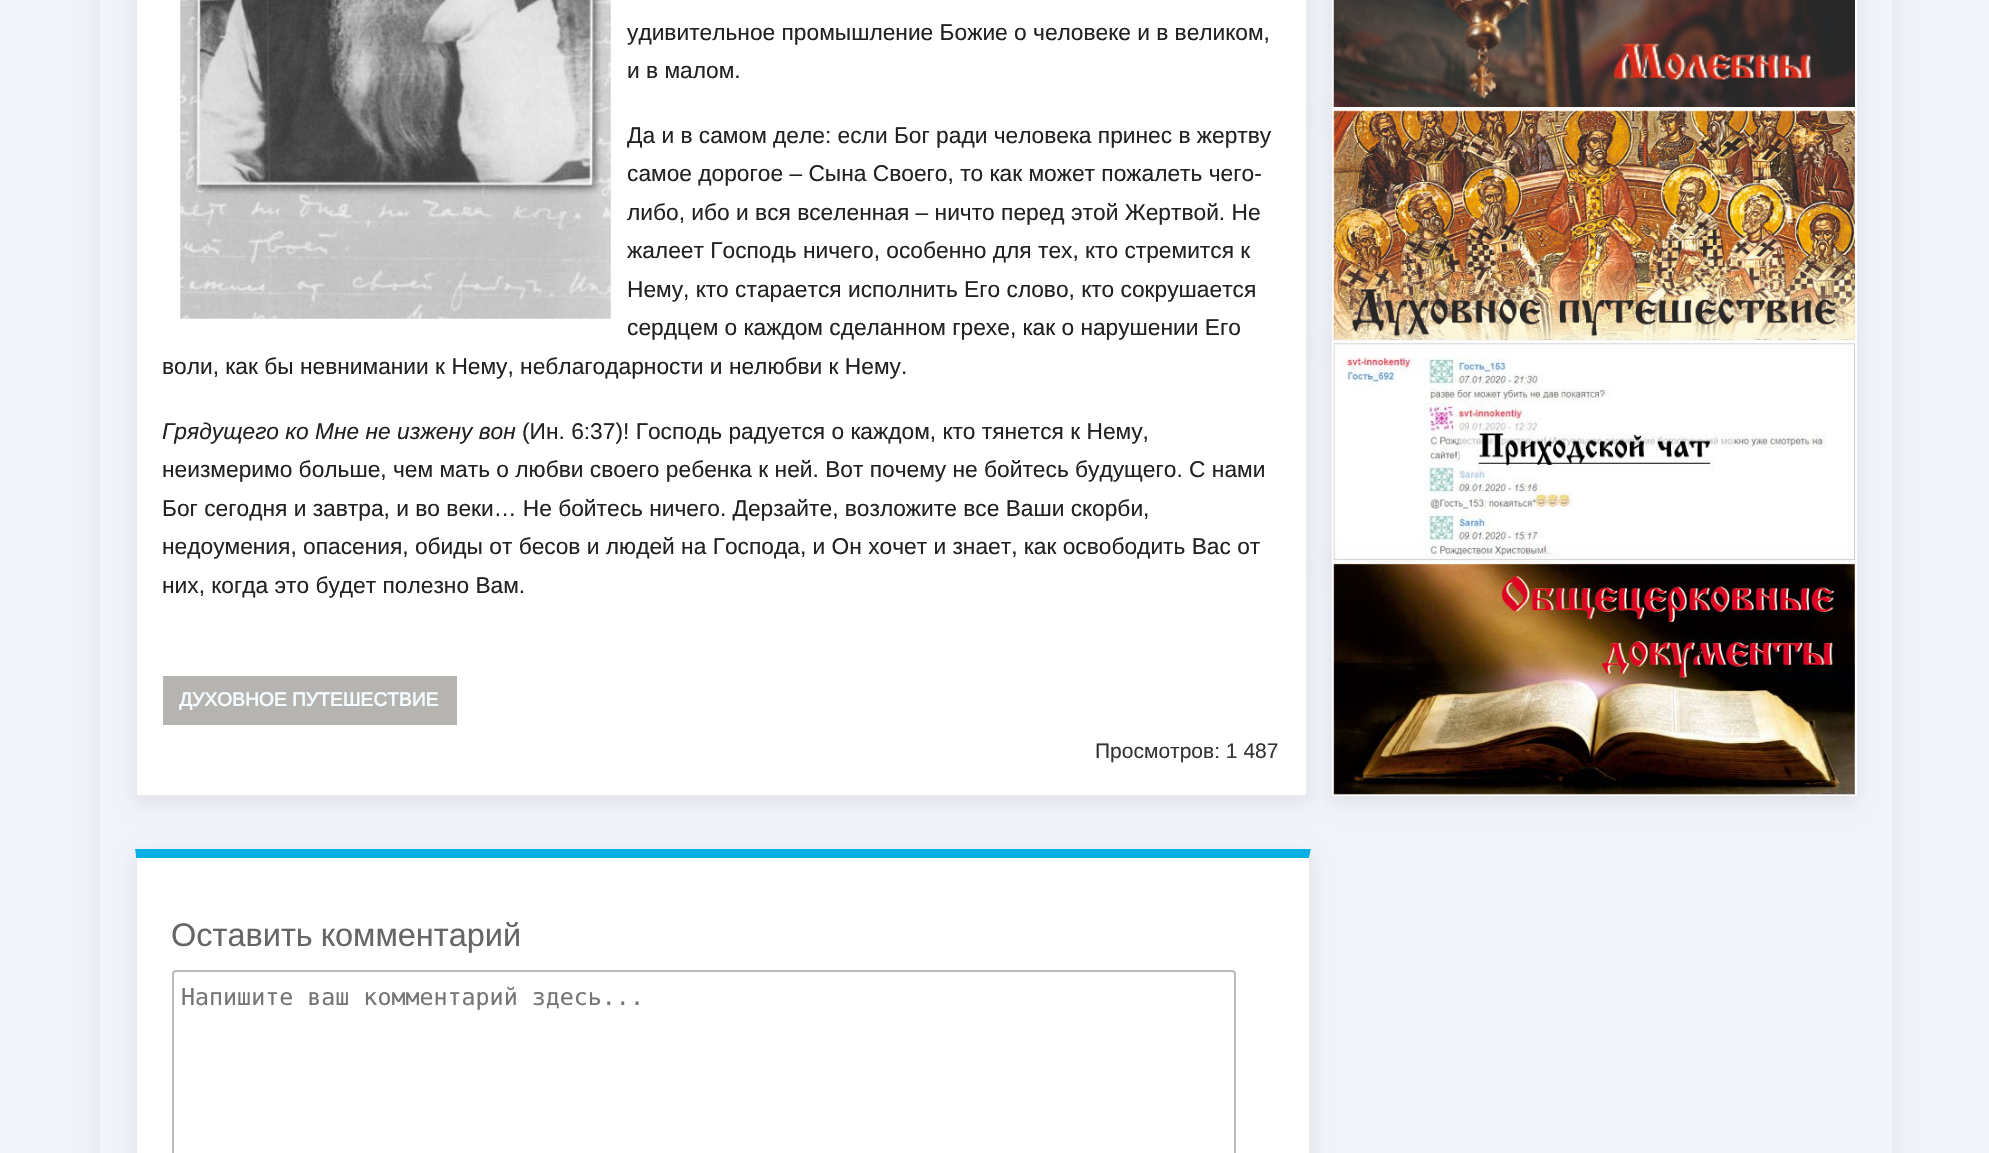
#include "include/core/SkBlurTypes.h"
#include "include/core/SkCanvas.h"
#include "include/core/SkData.h"
#include "include/core/SkFont.h"
#include "include/core/SkFontMgr.h"
#include "include/core/SkImage.h"
#include "include/core/SkMaskFilter.h"
#include "include/core/SkPaint.h"
#include "include/core/SkPathBuilder.h"
#include "include/core/SkTextBlob.h"
#include "include/effects/SkDashPathEffect.h"
#include "include/effects/SkGradientShader.h"
#include "include/utils/SkParsePath.h"

extern sk_sp<SkFontMgr> fontMgr;

void draw(SkCanvas* canvas) {
    SkPaint p;
    p.setAntiAlias(true);
    auto font = [&](const char* family, int weight, float size, bool italic = false) {
        SkFontStyle style(weight, SkFontStyle::kNormal_Width,
            italic ? SkFontStyle::kItalic_Slant : SkFontStyle::kUpright_Slant);
        SkFont result(fontMgr->matchFamilyStyle(family, style), size);
        result.setSubpixel(true);
        return result;
    };
    auto drawTracked = [&](const char* s, float x, float y, const SkFont& font, const SkPaint& ink, float letter, float word) {
        std::vector<SkGlyphID> glyphs(font.countText(s, strlen(s), SkTextEncoding::kUTF8));
        std::vector<float> xs(glyphs.size());
        font.textToGlyphs(s, strlen(s), SkTextEncoding::kUTF8, glyphs);
        font.getXPos(glyphs, xs, x);
        float extra = 0;
        for (size_t i = 0; i < glyphs.size(); i++) {
            xs[i] += extra;
            extra += letter + word * (glyphs[i] == font.unicharToGlyph(' '));
        }
        canvas->drawTextBlob(SkTextBlob::MakeFromPosHGlyphs(glyphs, xs, y, font), 0, 0, ink);
    };
    auto drawPhoto = [&](const char* path, float l, float t, float r, float b) {
        auto image = SkImages::DeferredFromEncodedData(SkData::MakeFromFileName(path));
        canvas->drawImageRect(image, SkRect::MakeLTRB(l, t, r, b), SkSamplingOptions());
    };
    canvas->clear(0xFFF2F4FC);
    p.setColor(0x14000000);
    p.setMaskFilter(SkMaskFilter::MakeBlur(kNormal_SkBlurStyle, 9));
    canvas->drawRect(SkRect::MakeLTRB(100, -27, 1892, 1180), p);
    p.setMaskFilter(nullptr);
    p.setColor(0xFFF2F4FC);
    canvas->drawRect(SkRect::MakeLTRB(100, 0, 1892, 1153), p);
    p.setColor(0x14000000);
    p.setMaskFilter(SkMaskFilter::MakeBlur(kNormal_SkBlurStyle, 9));
    canvas->drawRect(SkRect::MakeLTRB(135, -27, 1307, 803), p);
    p.setMaskFilter(nullptr);
    p.setColor(0xFFFFFFFF);
    canvas->drawRect(SkRect::MakeLTRB(137, 0, 1306, 795), p);
    p.setColor(0xFFEBEBEB);
    canvas->drawPath(SkPathBuilder().moveTo(1307, -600).lineTo(1307, 796).lineTo(1306, 794).lineTo(1306, -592).close().detach(), p);
    canvas->drawRect(SkRect::MakeLTRB(135, 795, 1307, 797), p);
    canvas->drawPath(SkPathBuilder().moveTo(135, 796).lineTo(135, -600).lineTo(136, -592).lineTo(136, 794).close().detach(), p);
    drawPhoto("media/1.png", 180, 0, 611, 319);
    auto font1 = font("Liberation Sans", 400, 22.75f);
    p.setColor(0xFF222222);
    {
        const struct { const char* s; float x, y; } items[] = {
            {"удивительное промышление Божие о человеке и в великом,", 627, 40},
            {"и в малом.", 627, 78},
            {"Да и в самом деле: если Бог ради человека принес в жертву", 627, 143},
            {"самое дорогое – Сына Своего, то как может пожалеть чего-", 627, 181},
            {"либо, ибо и вся вселенная – ничто перед этой Жертвой. Не", 627, 220},
            {"жалеет Господь ничего, особенно для тех, кто стремится к", 627, 258},
            {"Нему, кто старается исполнить Его слово, кто сокрушается", 627, 297},
            {"сердцем о каждом сделанном грехе, как о нарушении Его", 627, 335},
            {"воли, как бы невнимании к Нему, неблагодарности и нелюбви к Нему.", 162, 374},
        };
        for (auto [s, x, y] : items) {
            canvas->drawString(s, x, y, font1, p);
        }
    }
    auto font2 = font("Liberation Sans", 400, 22.75f, true);
    canvas->drawString("Грядущего ко Мне не изжену вон", 162, 439, font2, p);
    {
        const struct { const char* s; float x, y; } items[] = {
            {"(Ин. 6:37)! Господь радуется о каждом, кто тянется к Нему,", 522, 439},
            {"неизмеримо больше, чем мать о любви своего ребенка к ней. Вот почему не бойтесь будущего. С нами", 162, 477},
            {"Бог сегодня и завтра, и во веки… Не бойтесь ничего. Дерзайте, возложите все Ваши скорби,", 162, 516},
            {"недоумения, опасения, обиды от бесов и людей на Господа, и Он хочет и знает, как освободить Вас от", 162, 554},
            {"них, когда это будет полезно Вам.", 162, 593},
        };
        for (auto [s, x, y] : items) {
            canvas->drawString(s, x, y, font1, p);
        }
    }
    p.setColor(0xFFB6B4B0);
    canvas->drawRect(SkRect::MakeLTRB(163, 676, 457, 725), p);
    auto font3 = font("Arimo", 700, 19.25f);
    p.setColor(0xFFF4FCFF);
    canvas->drawString("ДУХОВНОЕ ПУТЕШЕСТВИЕ", 179, 706, font3, p);
    auto font4 = font("Arimo", 400, 21);
    p.setColor(0xFF333333);
    canvas->drawString("Просмотров: 1 487", 1095, 758, font4, p);
    p.setColor(0x14000000);
    p.setMaskFilter(SkMaskFilter::MakeBlur(kNormal_SkBlurStyle, 9));
    canvas->drawRect(SkRect::MakeLTRB(135, 856, 1311, 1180), p);
    p.setMaskFilter(nullptr);
    p.setColor(0xFFFFFFFF);
    canvas->drawRect(SkRect::MakeLTRB(137, 858, 1309, 1153), p);
    p.setColor(0xFF06AFE4);
    canvas->drawPath(SkPathBuilder().moveTo(135, 849).lineTo(1311, 849).lineTo(1309, 858).lineTo(136, 858).close().detach(), p);
    p.setColor(0xFFEBEBEB);
    canvas->drawPath(SkPathBuilder().moveTo(1311, 849).lineTo(1311, 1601).lineTo(1309, 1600).lineTo(1309, 858).close().detach(), p);
    canvas->drawPath(SkPathBuilder().moveTo(135, 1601).lineTo(135, 849).lineTo(136, 858).lineTo(136, 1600).close().detach(), p);
    auto font5 = font("Liberation Sans", 400, 32.5f);
    p.setColor(0xFF666666);
    drawTracked("Оставить комментарий", 171, 946, font5, p, 0, -1);
    p.setStyle(SkPaint::kStroke_Style);
    p.setStrokeWidth(2);
    p.setColor(0xFFBBBBBB);
    canvas->drawRoundRect(SkRect::MakeLTRB(173, 971, 1235, 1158), 3, 3, p);
    auto font6 = font("DejaVu Sans Mono", 400, 23.3f);
    p.setStyle(SkPaint::kFill_Style);
    p.setColor(0xFF757575);
    canvas->drawString("Напишите ваш комментарий здесь...", 181, 1005, font6, p);
    p.setColor(0x14000000);
    p.setMaskFilter(SkMaskFilter::MakeBlur(kNormal_SkBlurStyle, 9));
    canvas->drawRect(SkRect::MakeLTRB(1332, -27, 1857, 116), p);
    p.setMaskFilter(nullptr);
    p.setColor(0xFFFFFFFF);
    canvas->drawRect(SkRect::MakeLTRB(1332, 0, 1857, 109), p);
    drawPhoto("media/2.png", 1333, 0, 1855, 107);
    p.setColor(0x14000000);
    p.setMaskFilter(SkMaskFilter::MakeBlur(kNormal_SkBlurStyle, 9));
    canvas->drawRect(SkRect::MakeLTRB(1332, 116, 1857, 348), p);
    p.setMaskFilter(nullptr);
    p.setColor(0xFFFFFFFF);
    canvas->drawRect(SkRect::MakeLTRB(1332, 109, 1857, 341), p);
    drawPhoto("media/3.png", 1333, 110, 1855, 340);
    p.setColor(0x14000000);
    p.setMaskFilter(SkMaskFilter::MakeBlur(kNormal_SkBlurStyle, 9));
    canvas->drawRect(SkRect::MakeLTRB(1332, 348, 1857, 569), p);
    p.setMaskFilter(nullptr);
    p.setColor(0xFFFFFFFF);
    canvas->drawRect(SkRect::MakeLTRB(1332, 341, 1857, 562), p);
    drawPhoto("media/4.png", 1333, 343, 1855, 561);
    p.setColor(0x14000000);
    p.setMaskFilter(SkMaskFilter::MakeBlur(kNormal_SkBlurStyle, 9));
    canvas->drawRect(SkRect::MakeLTRB(1332, 569, 1857, 803), p);
    p.setMaskFilter(nullptr);
    p.setColor(0xFFFFFFFF);
    canvas->drawRect(SkRect::MakeLTRB(1332, 562, 1857, 796), p);
    drawPhoto("media/5.png", 1333, 563, 1855, 795);
}
